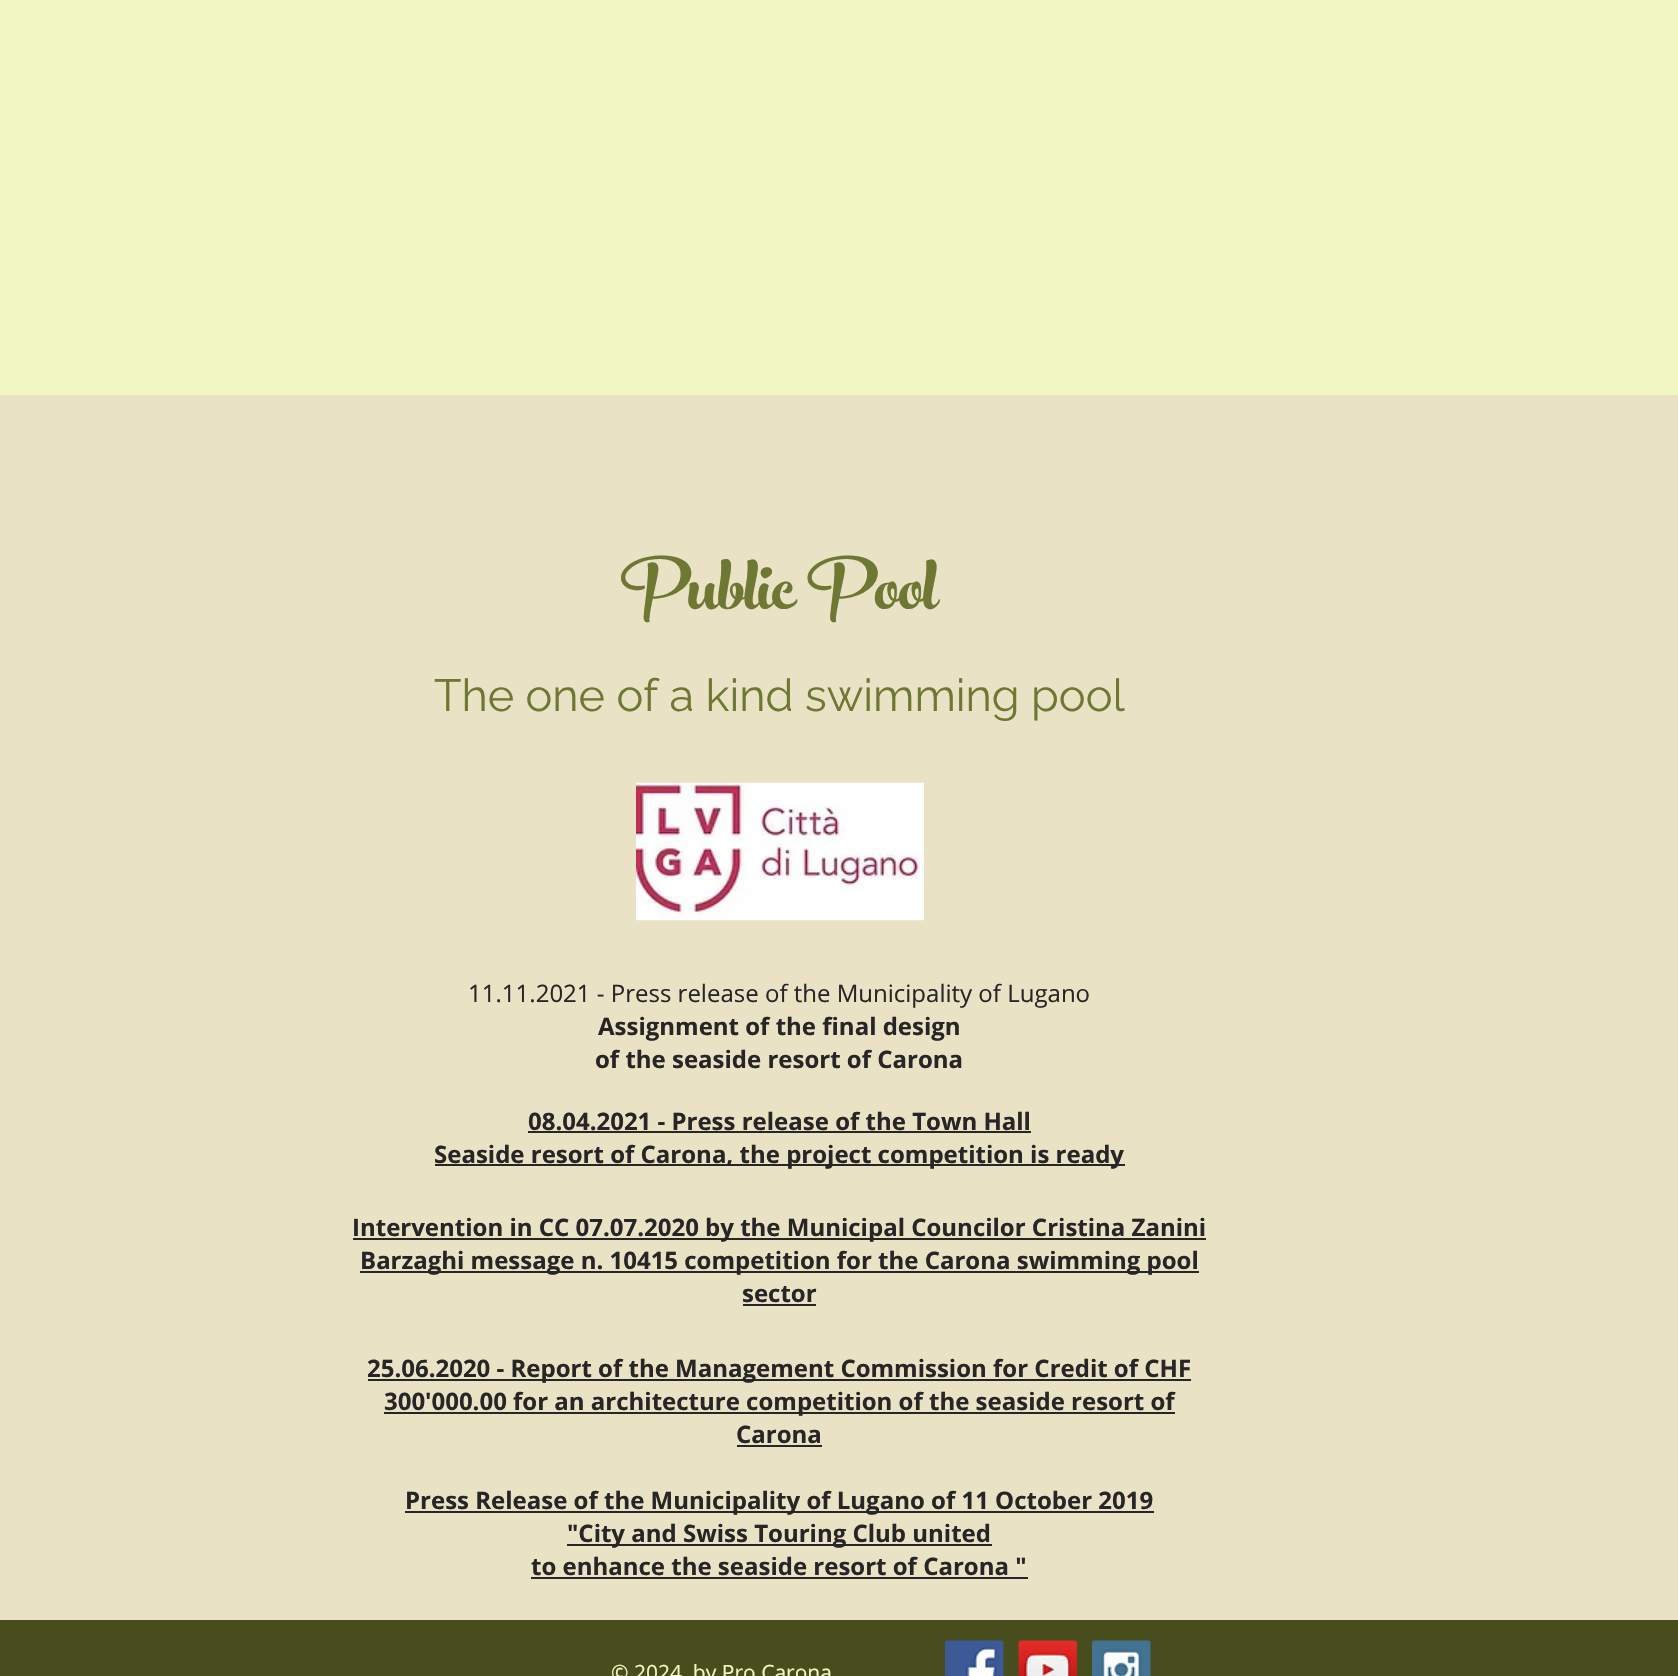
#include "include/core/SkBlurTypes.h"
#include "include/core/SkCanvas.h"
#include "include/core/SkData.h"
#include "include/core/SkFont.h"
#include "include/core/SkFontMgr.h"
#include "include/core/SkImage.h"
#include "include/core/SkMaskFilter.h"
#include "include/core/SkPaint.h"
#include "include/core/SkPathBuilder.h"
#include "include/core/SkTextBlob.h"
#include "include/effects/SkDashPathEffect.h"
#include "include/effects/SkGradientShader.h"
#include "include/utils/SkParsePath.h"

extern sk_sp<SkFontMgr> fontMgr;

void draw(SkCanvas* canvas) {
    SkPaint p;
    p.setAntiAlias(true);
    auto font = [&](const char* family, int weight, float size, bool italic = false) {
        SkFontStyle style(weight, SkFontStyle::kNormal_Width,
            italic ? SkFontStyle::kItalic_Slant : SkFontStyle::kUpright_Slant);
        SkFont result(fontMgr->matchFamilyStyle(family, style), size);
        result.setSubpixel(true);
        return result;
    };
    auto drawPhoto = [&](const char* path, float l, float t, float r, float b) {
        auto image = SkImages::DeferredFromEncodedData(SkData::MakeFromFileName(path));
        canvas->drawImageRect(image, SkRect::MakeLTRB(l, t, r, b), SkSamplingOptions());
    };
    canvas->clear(0xFFF1F7C3);
    p.setColor(0xFFEAE2C5);
    canvas->drawRect(SkRect::MakeLTRB(0, 395, 1678, 1620), p);
    auto font1 = font("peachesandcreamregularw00", 400, 105);
    p.setColor(0xFF6F7832);
    canvas->drawString("Public Pool", 621, 609, font1, p);
    auto font2 = font("Raleway", 400, 45);
    canvas->drawString("The one of a kind swimming pool", 434, 711, font2, p);
    drawPhoto("media/1.png", 636, 782, 924, 921);
    auto font3 = font("Open Sans", 400, 24);
    p.setColor(0xFF282527);
    canvas->drawString("11.11.2021 - Press release of the Municipality of Lugano", 468, 1002, font3, p);
    auto font4 = font("Open Sans", 700, 24);
    {
        const struct { const char* s; float x, y; } items[] = {
            {"Assignment of the final design", 598, 1035},
            {"of the seaside resort of Carona", 595, 1068},
            {"08.04.2021 - Press release of the Town Hall", 528, 1130},
        };
        for (auto [s, x, y] : items) {
            canvas->drawString(s, x, y, font4, p);
        }
    }
    canvas->drawRect(SkRect::MakeLTRB(528, 1131, 1031, 1133), p);
    canvas->drawRect(SkRect::MakeLTRB(435, 1164, 1125, 1166), p);
    canvas->drawString("Seaside resort of Carona, the project competition is ready", 434, 1163, font4, p);
    canvas->drawRect(SkRect::MakeLTRB(353, 1238, 1206, 1240), p);
    canvas->drawString("Intervention in CC 07.07.2020 by the Municipal Councilor Cristina Zanini", 352, 1236, font4, p);
    canvas->drawRect(SkRect::MakeLTRB(360, 1271, 1199, 1273), p);
    canvas->drawString("Barzaghi message n. 10415 competition for the Carona swimming pool", 360, 1269, font4, p);
    canvas->drawString("sector", 742, 1302, font4, p);
    canvas->drawRect(SkRect::MakeLTRB(743, 1304, 816, 1306), p);
    canvas->drawRect(SkRect::MakeLTRB(368, 1379, 1191, 1381), p);
    canvas->drawString("25.06.2020 - Report of the Management Commission for Credit of CHF", 367, 1377, font4, p);
    canvas->drawRect(SkRect::MakeLTRB(384, 1412, 1175, 1414), p);
    canvas->drawString("300'000.00 for an architecture competition of the seaside resort of", 384, 1410, font4, p);
    canvas->drawString("Carona", 736, 1443, font4, p);
    canvas->drawRect(SkRect::MakeLTRB(737, 1445, 822, 1447), p);
    canvas->drawRect(SkRect::MakeLTRB(405, 1511, 1154, 1513), p);
    canvas->drawString("Press Release of the Municipality of Lugano of 11 October 2019", 405, 1509, font4, p);
    canvas->drawRect(SkRect::MakeLTRB(567, 1544, 992, 1546), p);
    canvas->drawString("\"City and Swiss Touring Club united", 567, 1542, font4, p);
    canvas->drawString("to enhance the seaside resort of Carona \"", 531, 1575, font4, p);
    canvas->drawRect(SkRect::MakeLTRB(531, 1577, 1028, 1579), p);
    p.setColor(0xFF474D1D);
    canvas->drawRect(SkRect::MakeLTRB(0, 1620, 1678, 1676), p);
    auto font5 = font("Open Sans", 400, 21);
    p.setColor(0xFFF1F7C3);
    canvas->drawString("© 2024  by Pro Carona", 611, 1680, font5, p);
    drawPhoto("media/2.png", 945, 1640, 1004, 1676);
    drawPhoto("media/3.png", 1018, 1640, 1077, 1676);
    drawPhoto("media/4.png", 1092, 1640, 1151, 1676);
}
